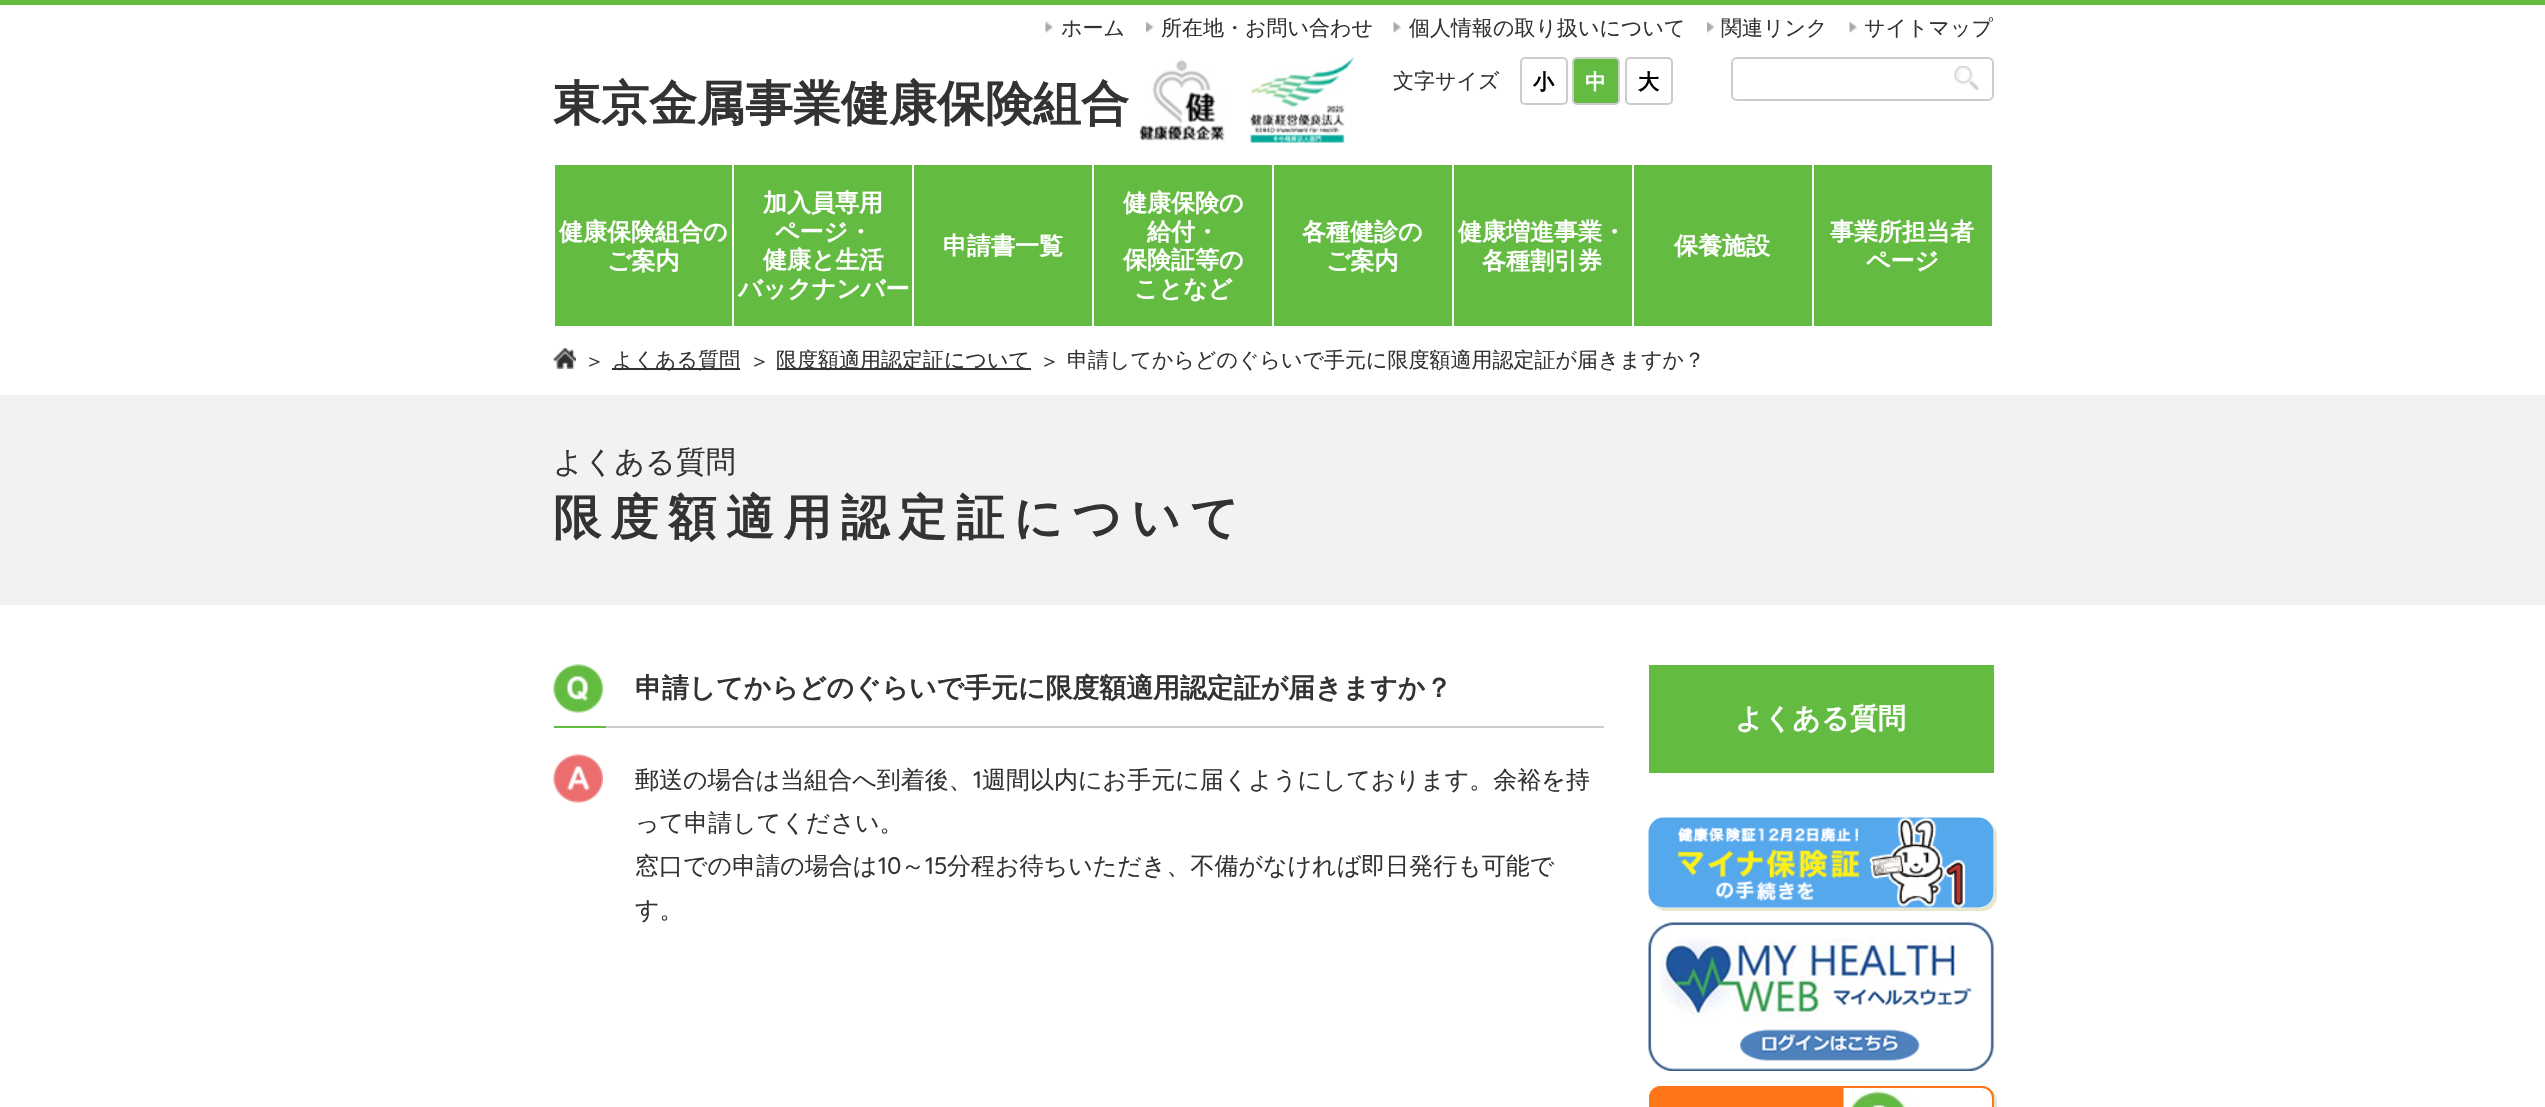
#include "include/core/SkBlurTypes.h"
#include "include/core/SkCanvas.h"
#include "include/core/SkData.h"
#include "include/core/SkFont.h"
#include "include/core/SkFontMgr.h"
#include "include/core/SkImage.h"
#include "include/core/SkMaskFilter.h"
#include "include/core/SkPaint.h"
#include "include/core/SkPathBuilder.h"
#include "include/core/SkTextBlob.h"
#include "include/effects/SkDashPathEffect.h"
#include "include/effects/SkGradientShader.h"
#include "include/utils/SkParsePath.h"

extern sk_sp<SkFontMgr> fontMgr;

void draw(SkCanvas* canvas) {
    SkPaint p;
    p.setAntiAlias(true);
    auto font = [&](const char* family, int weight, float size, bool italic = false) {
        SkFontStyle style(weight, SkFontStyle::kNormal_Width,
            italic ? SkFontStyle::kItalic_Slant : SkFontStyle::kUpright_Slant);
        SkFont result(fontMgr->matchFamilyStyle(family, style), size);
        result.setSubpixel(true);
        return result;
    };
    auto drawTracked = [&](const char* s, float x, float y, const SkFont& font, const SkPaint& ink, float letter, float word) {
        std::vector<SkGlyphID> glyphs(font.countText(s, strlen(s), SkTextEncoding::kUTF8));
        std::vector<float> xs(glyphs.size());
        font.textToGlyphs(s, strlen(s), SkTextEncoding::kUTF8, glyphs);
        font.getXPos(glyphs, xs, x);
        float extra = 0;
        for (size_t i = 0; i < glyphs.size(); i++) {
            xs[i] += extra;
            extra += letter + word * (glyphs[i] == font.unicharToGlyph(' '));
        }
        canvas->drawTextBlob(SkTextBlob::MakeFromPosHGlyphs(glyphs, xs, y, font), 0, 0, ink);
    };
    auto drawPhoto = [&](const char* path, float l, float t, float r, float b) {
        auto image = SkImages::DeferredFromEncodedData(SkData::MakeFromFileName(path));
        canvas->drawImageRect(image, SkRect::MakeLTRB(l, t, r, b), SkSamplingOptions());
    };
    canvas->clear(0xFFFFFFFF);
    p.setColor(0xFF64BB41);
    canvas->drawRect(SkRect::MakeLTRB(0, 0, 2545, 5), p);
    drawPhoto("media/1.png", 1045, 21, 1053, 33);
    auto font1 = font("WenQuanYi Zen Hei", 500, 21);
    p.setColor(0xFF333333);
    canvas->drawString("ホーム", 1061, 35, font1, p);
    drawPhoto("media/2.png", 1146, 21, 1154, 33);
    canvas->drawString("所在地・お問い合わせ", 1161, 35, font1, p);
    drawPhoto("media/1.png", 1393, 21, 1401, 33);
    canvas->drawString("個人情報の取り扱いについて", 1409, 35, font1, p);
    drawPhoto("media/3.png", 1707, 21, 1715, 33);
    canvas->drawString("関連リンク", 1721, 35, font1, p);
    drawPhoto("media/4.png", 1849, 21, 1857, 33);
    canvas->drawString("サイトマップ", 1864, 35, font1, p);
    auto font2 = font("WenQuanYi Zen Hei", 700, 48);
    canvas->drawString("東京金属事業健康保険組合", 553, 120, font2, p);
    drawPhoto("media/5.png", 1139, 60, 1225, 142);
    drawPhoto("media/6.png", 1249, 57, 1355, 143);
    canvas->drawString("文字サイズ", 1393, 88, font1, p);
    p.setStyle(SkPaint::kStroke_Style);
    p.setStrokeWidth(2);
    p.setColor(0xFFCCCCCC);
    canvas->drawRoundRect(SkRect::MakeLTRB(1521, 58, 1567, 104), 4, 4, p);
    auto font3 = font("WenQuanYi Zen Hei", 700, 21);
    p.setStyle(SkPaint::kFill_Style);
    p.setColor(0xFF000000);
    canvas->drawString("小", 1533, 89, font3, p);
    p.setColor(0xFF64BB41);
    canvas->drawRoundRect(SkRect::MakeLTRB(1573, 58, 1619, 104), 4, 4, p);
    p.setStyle(SkPaint::kStroke_Style);
    p.setColor(0xFFCCCCCC);
    canvas->drawRoundRect(SkRect::MakeLTRB(1573, 58, 1619, 104), 4, 4, p);
    p.setStyle(SkPaint::kFill_Style);
    p.setColor(0xFFFFFFFF);
    canvas->drawString("中", 1585, 89, font3, p);
    p.setStyle(SkPaint::kStroke_Style);
    p.setColor(0xFFCCCCCC);
    canvas->drawRoundRect(SkRect::MakeLTRB(1626, 58, 1672, 104), 4, 4, p);
    p.setStyle(SkPaint::kFill_Style);
    p.setColor(0xFF000000);
    canvas->drawString("大", 1638, 89, font3, p);
    p.setStyle(SkPaint::kStroke_Style);
    p.setColor(0xFFCCCCCC);
    canvas->drawRoundRect(SkRect::MakeLTRB(1732, 58, 1993, 100), 5, 5, p);
    drawPhoto("media/7.png", 1954, 66, 1979, 90);
    p.setStyle(SkPaint::kFill_Style);
    p.setColor(0xFF64BB41);
    canvas->drawRect(SkRect::MakeLTRB(555, 165, 732, 326), p);
    auto font4 = font("WenQuanYi Zen Hei", 700, 24);
    p.setColor(0xFFFFFFFF);
    canvas->drawString("健康保険組合の", 559, 240, font4, p);
    canvas->drawString("ご案内", 607, 269, font4, p);
    p.setColor(0xFF64BB41);
    canvas->drawRect(SkRect::MakeLTRB(734, 165, 912, 326), p);
    p.setColor(0xFFFFFFFF);
    {
        const struct { const char* s; float x, y; } items[] = {
            {"加入員専用", 763, 211},
            {"ページ・", 775, 240},
            {"健康と生活", 763, 268},
            {"バックナンバー", 738, 297},
        };
        for (auto [s, x, y] : items) {
            canvas->drawString(s, x, y, font4, p);
        }
    }
    p.setColor(0xFF64BB41);
    canvas->drawRect(SkRect::MakeLTRB(914, 165, 1092, 326), p);
    p.setColor(0xFFFFFFFF);
    canvas->drawString("申請書一覧", 943, 254, font4, p);
    p.setColor(0xFF64BB41);
    canvas->drawRect(SkRect::MakeLTRB(1094, 165, 1272, 326), p);
    p.setColor(0xFFFFFFFF);
    {
        const struct { const char* s; float x, y; } items[] = {
            {"健康保険の", 1123, 211},
            {"給付・", 1147, 240},
            {"保険証等の", 1123, 268},
            {"ことなど", 1134, 297},
        };
        for (auto [s, x, y] : items) {
            canvas->drawString(s, x, y, font4, p);
        }
    }
    p.setColor(0xFF64BB41);
    canvas->drawRect(SkRect::MakeLTRB(1274, 165, 1452, 326), p);
    p.setColor(0xFFFFFFFF);
    canvas->drawString("各種健診の", 1302, 240, font4, p);
    canvas->drawString("ご案内", 1326, 269, font4, p);
    p.setColor(0xFF64BB41);
    canvas->drawRect(SkRect::MakeLTRB(1454, 165, 1632, 326), p);
    p.setColor(0xFFFFFFFF);
    canvas->drawString("健康増進事業・", 1458, 240, font4, p);
    canvas->drawString("各種割引券", 1482, 269, font4, p);
    p.setColor(0xFF64BB41);
    canvas->drawRect(SkRect::MakeLTRB(1634, 165, 1812, 326), p);
    p.setColor(0xFFFFFFFF);
    canvas->drawString("保養施設", 1674, 254, font4, p);
    p.setColor(0xFF64BB41);
    canvas->drawRect(SkRect::MakeLTRB(1814, 165, 1992, 326), p);
    p.setColor(0xFFFFFFFF);
    canvas->drawString("事業所担当者", 1830, 240, font4, p);
    canvas->drawString("ページ", 1866, 269, font4, p);
    drawPhoto("media/8.png", 553, 348, 576, 369);
    p.setColor(0xFF333333);
    canvas->drawString("＞", 584, 368, font1, p);
    canvas->drawRect(SkRect::MakeLTRB(612, 368, 740, 370), p);
    canvas->drawString("よくある質問", 612, 367, font1, p);
    canvas->drawString("＞", 749, 368, font1, p);
    canvas->drawRect(SkRect::MakeLTRB(777, 368, 1031, 370), p);
    {
        const struct { const char* s; float x, y; } items[] = {
            {"限度額適用認定証について", 776, 367},
            {"＞", 1039, 368},
            {"申請してからどのぐらいで手元に限度額適用認定証が届きますか？", 1067, 367},
        };
        for (auto [s, x, y] : items) {
            canvas->drawString(s, x, y, font1, p);
        }
    }
    p.setColor(0xFFF2F2F2);
    canvas->drawRect(SkRect::MakeLTRB(0, 395, 2545, 605), p);
    auto font5 = font("WenQuanYi Zen Hei", 500, 30);
    p.setColor(0xFF333333);
    canvas->drawString("よくある質問", 553, 472, font5, p);
    drawTracked("限度額適用認定証について", 553, 534, font2, p, 9.6f, 0);
    drawPhoto("media/9.png", 553, 664, 603, 713);
    p.setColor(0xFFCCCCCC);
    canvas->drawRect(SkRect::MakeLTRB(606, 726, 1604, 728), p);
    auto font6 = font("WenQuanYi Zen Hei", 700, 26.9f);
    p.setColor(0xFF333333);
    canvas->drawString("申請してからどのぐらいで手元に限度額適用認定証が届きますか？", 635, 697, font6, p);
    p.setColor(0xFF64BB41);
    canvas->drawRect(SkRect::MakeLTRB(554, 726, 606, 728), p);
    drawPhoto("media/10.png", 553, 754, 603, 803);
    auto font7 = font("WenQuanYi Zen Hei", 500, 24);
    p.setColor(0xFF333333);
    canvas->drawString("郵送の場合は当組合へ到着後、", 635, 788, font7, p);
    auto font8 = font("Quicksand", 500, 24);
    canvas->drawString("1", 973, 788, font8, p);
    {
        const struct { const char* s; float x, y; } items[] = {
            {"週間以内にお手元に届くようにしております。余裕を持", 982, 788},
            {"って申請してください。", 635, 831},
            {"窓口での申請の場合は", 635, 874},
        };
        for (auto [s, x, y] : items) {
            canvas->drawString(s, x, y, font7, p);
        }
    }
    canvas->drawString("10", 878, 874, font8, p);
    canvas->drawString("～", 901, 874, font7, p);
    canvas->drawString("15", 925, 874, font8, p);
    canvas->drawString("分程お待ちいただき、不備がなければ即日発行も可能で", 947, 874, font7, p);
    canvas->drawString("す。", 635, 918, font7, p);
    p.setColor(0xFF64BB41);
    canvas->drawRect(SkRect::MakeLTRB(1649, 665, 1994, 773), p);
    auto font9 = font("WenQuanYi Zen Hei", 700, 28);
    p.setColor(0xFFFFFFFF);
    canvas->drawString("よくある質問", 1735, 728, font9, p);
    p.setColor(0xFFE4E6CF);
    canvas->drawPath(SkPathBuilder().moveTo(1655, 905).cubicTo(1658, 909, 1662, 911, 1667, 911).lineTo(1982, 911).cubicTo(1990, 911, 1997, 904, 1997, 896).lineTo(1997, 836).cubicTo(1997, 831, 1995, 827, 1991, 824).cubicTo(1992, 826, 1994, 829, 1994, 832).lineTo(1994, 892).cubicTo(1994, 901, 1987, 908, 1978, 908).lineTo(1664, 908).cubicTo(1660, 908, 1657, 906, 1655, 905).close().detach(), p);
    drawPhoto("media/11.png", 1648, 817, 1994, 908);
    drawPhoto("media/12.png", 1648, 922, 1994, 1071);
    canvas->drawPath(SkPathBuilder().moveTo(1655, 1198).cubicTo(1657, 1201, 1660, 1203, 1664, 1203).lineTo(1985, 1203).cubicTo(1992, 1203, 1997, 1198, 1997, 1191).lineTo(1997, 1101).cubicTo(1997, 1097, 1995, 1093, 1991, 1091).cubicTo(1993, 1093, 1994, 1095, 1994, 1098).lineTo(1994, 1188).cubicTo(1994, 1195, 1988, 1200, 1982, 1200).lineTo(1660, 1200).cubicTo(1658, 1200, 1656, 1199, 1655, 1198).close().detach(), p);
    p.setColor(0xFFFF7619);
    canvas->drawRoundRect(SkRect::MakeLTRB(1649, 1086, 1994, 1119), 12, 12, p);
    drawPhoto("media/13.png", 1843, 1087, 1992, 1107);
    p.setStyle(SkPaint::kStroke_Style);
    canvas->drawRoundRect(SkRect::MakeLTRB(1650, 1087, 1993, 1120), 11, 11, p);
}
